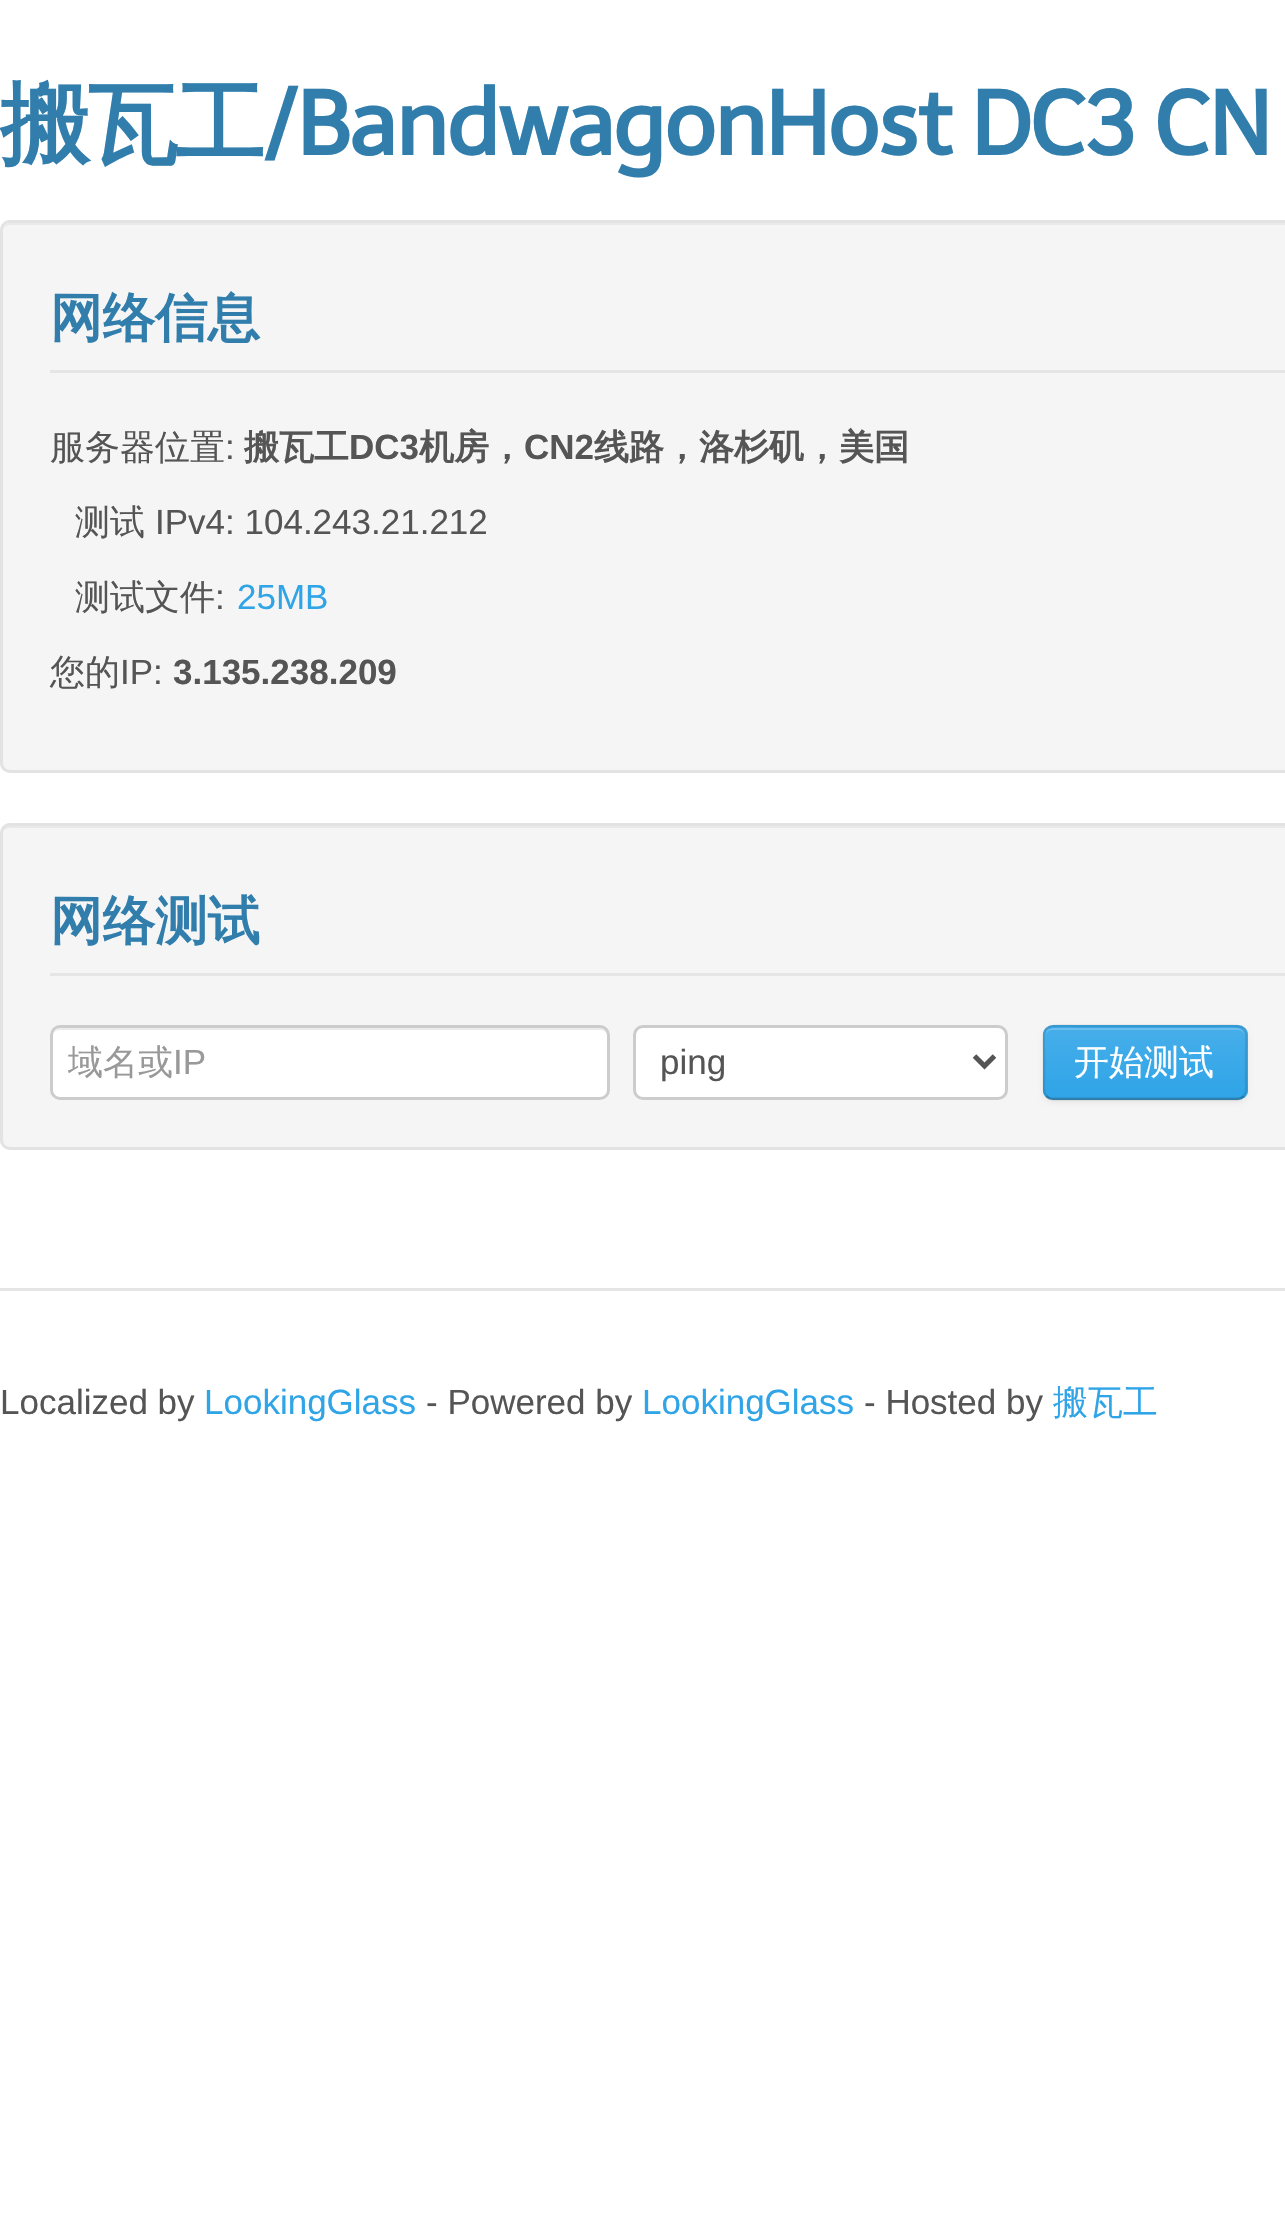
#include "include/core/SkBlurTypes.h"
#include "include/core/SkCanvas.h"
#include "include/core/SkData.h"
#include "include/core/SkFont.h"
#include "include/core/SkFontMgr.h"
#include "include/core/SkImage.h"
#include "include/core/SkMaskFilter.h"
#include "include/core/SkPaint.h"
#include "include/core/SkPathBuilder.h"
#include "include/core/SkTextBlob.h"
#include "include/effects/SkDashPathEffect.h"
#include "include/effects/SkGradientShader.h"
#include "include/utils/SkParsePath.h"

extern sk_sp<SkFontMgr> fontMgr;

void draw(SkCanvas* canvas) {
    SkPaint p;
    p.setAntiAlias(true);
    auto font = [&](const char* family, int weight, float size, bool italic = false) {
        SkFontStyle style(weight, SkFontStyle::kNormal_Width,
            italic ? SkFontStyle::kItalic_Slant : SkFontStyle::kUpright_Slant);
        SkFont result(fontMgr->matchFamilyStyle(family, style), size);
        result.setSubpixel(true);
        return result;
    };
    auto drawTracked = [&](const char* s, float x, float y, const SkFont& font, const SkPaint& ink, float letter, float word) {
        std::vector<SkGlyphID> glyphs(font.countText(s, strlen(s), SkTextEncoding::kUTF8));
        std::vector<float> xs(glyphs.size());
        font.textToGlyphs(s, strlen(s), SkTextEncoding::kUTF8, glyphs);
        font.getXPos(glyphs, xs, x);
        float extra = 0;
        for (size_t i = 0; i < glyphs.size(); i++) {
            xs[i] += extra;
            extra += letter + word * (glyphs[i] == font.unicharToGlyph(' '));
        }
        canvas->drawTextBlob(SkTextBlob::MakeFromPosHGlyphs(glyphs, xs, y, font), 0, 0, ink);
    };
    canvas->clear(0xFFFFFFFF);
    auto font1 = font("WenQuanYi Zen Hei", 700, 90);
    p.setColor(0xFF317EAC);
    drawTracked("搬瓦工", 0, 155, font1, p, -2.5f, 0);
    auto font2 = font("Telex", 700, 90);
    drawTracked("/BandwagonHost DC3 CN", 263, 155, font2, p, -2.5f, 0);
    p.setColor(0xFFF5F5F5);
    canvas->drawRoundRect(SkRect::MakeLTRB(0, 220, 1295, 773), 10, 10, p);
    p.setColor(0xFFE9E9E9);
    canvas->drawPath(SkPathBuilder().moveTo(10, 225).lineTo(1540, 225).cubicTo(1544, 225, 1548, 228, 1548, 232).lineTo(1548, 231).cubicTo(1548, 227, 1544, 223, 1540, 223).lineTo(11, 223).cubicTo(8, 223, 5, 225, 4, 228).cubicTo(5, 226, 8, 225, 10, 225).close().detach(), p);
    p.setStyle(SkPaint::kStroke_Style);
    p.setStrokeWidth(3);
    p.setColor(0xFFE3E3E3);
    canvas->drawRoundRect(SkRect::MakeLTRB(1.5f, 221.5f, 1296.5f, 771.5f), 8.5f, 8.5f, p);
    p.setStyle(SkPaint::kFill_Style);
    p.setColor(0xFFE5E5E5);
    canvas->drawRect(SkRect::MakeLTRB(50, 370, 1285, 373), p);
    auto font3 = font("WenQuanYi Zen Hei", 700, 52.5f);
    p.setColor(0xFF317EAC);
    canvas->drawString("网络信息", 50, 336, font3, p);
    auto font4 = font("WenQuanYi Zen Hei", 500, 35);
    p.setColor(0xFF555555);
    canvas->drawString("服务器位置", 50, 459, font4, p);
    auto font5 = font("Liberation Sans", 400, 35);
    canvas->drawString(":", 225, 459, font5, p);
    auto font6 = font("WenQuanYi Zen Hei", 700, 35);
    canvas->drawString("搬瓦工", 244, 459, font6, p);
    auto font7 = font("Liberation Sans", 700, 35);
    canvas->drawString("DC3", 349, 459, font7, p);
    canvas->drawString("机房，", 419, 459, font6, p);
    canvas->drawString("CN2", 524, 459, font7, p);
    canvas->drawString("线路，洛杉矶，美国", 594, 459, font6, p);
    canvas->drawString("测试", 75, 534, font4, p);
    canvas->drawString("IPv4: 104.243.21.212", 155, 534, font5, p);
    canvas->drawString("测试文件", 75, 609, font4, p);
    canvas->drawString(":", 215, 609, font5, p);
    p.setColor(0xFF2FA4E7);
    canvas->drawString("25MB", 237, 609, font5, p);
    p.setColor(0xFF555555);
    canvas->drawString("您的", 50, 684, font4, p);
    canvas->drawString("IP:", 120, 684, font5, p);
    canvas->drawString("3.135.238.209", 173, 684, font7, p);
    p.setColor(0xFFF5F5F5);
    canvas->drawRoundRect(SkRect::MakeLTRB(0, 823, 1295, 1150), 10, 10, p);
    p.setColor(0xFFE9E9E9);
    canvas->drawPath(SkPathBuilder().moveTo(10, 828).lineTo(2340, 828).cubicTo(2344, 828, 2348, 831, 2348, 835).lineTo(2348, 833).cubicTo(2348, 829, 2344, 825, 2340, 825).lineTo(11, 825).cubicTo(7, 825, 4, 828, 3, 831).cubicTo(5, 829, 7, 828, 10, 828).close().detach(), p);
    p.setStyle(SkPaint::kStroke_Style);
    p.setColor(0xFFE3E3E3);
    canvas->drawRoundRect(SkRect::MakeLTRB(1.5f, 824.5f, 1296.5f, 1148.5f), 8.5f, 8.5f, p);
    p.setStyle(SkPaint::kFill_Style);
    p.setColor(0xFFE5E5E5);
    canvas->drawRect(SkRect::MakeLTRB(50, 973, 1285, 976), p);
    p.setColor(0xFF317EAC);
    canvas->drawString("网络测试", 50, 939, font3, p);
    p.setColor(0xFFFFFFFF);
    canvas->drawRoundRect(SkRect::MakeLTRB(50, 1025, 610, 1100), 10, 10, p);
    p.setColor(0xFFECECEC);
    canvas->drawPath(SkPathBuilder().moveTo(60, 1030).lineTo(600, 1030).cubicTo(604, 1030, 608, 1033, 608, 1038).lineTo(608, 1036).cubicTo(608, 1032, 604, 1028, 600, 1028).lineTo(61, 1028).cubicTo(58, 1028, 55, 1030, 53, 1033).cubicTo(55, 1031, 58, 1030, 60, 1030).close().detach(), p);
    p.setStyle(SkPaint::kStroke_Style);
    p.setColor(0xFFCCCCCC);
    canvas->drawRoundRect(SkRect::MakeLTRB(51.5f, 1026.5f, 608.5f, 1098.5f), 8.5f, 8.5f, p);
    canvas->save();
    canvas->clipRect(SkRect::MakeLTRB(68, 1043, 593, 1088));
    p.setStyle(SkPaint::kFill_Style);
    p.setColor(0xFF999999);
    canvas->drawString("域名或", 68, 1074, font4, p);
    canvas->restore();
    canvas->drawString("IP", 173, 1074, font5, p);
    p.setColor(0xFFFFFFFF);
    canvas->drawRoundRect(SkRect::MakeLTRB(634.5f, 1026.5f, 1006.5f, 1098.5f), 8.5f, 8.5f, p);
    p.setStyle(SkPaint::kStroke_Style);
    p.setColor(0xFFCCCCCC);
    canvas->drawRoundRect(SkRect::MakeLTRB(634.5f, 1026.5f, 1006.5f, 1098.5f), 8.5f, 8.5f, p);
    p.setStrokeWidth(5);
    p.setColor(0xFF555555);
    canvas->drawPath(SkPathBuilder().moveTo(974.5f, 1056).lineTo(984.5f, 1066).lineTo(994.5f, 1056).detach(), p);
    p.setStyle(SkPaint::kFill_Style);
    canvas->drawString("ping", 660, 1074, font5, p);
    p.setColor(0x0D000000);
    p.setMaskFilter(SkMaskFilter::MakeBlur(kNormal_SkBlurStyle, 2.5f));
    canvas->drawRoundRect(SkRect::MakeLTRB(1043, 1028, 1248, 1103), 10, 10, p);
    p.setMaskFilter(nullptr);
    p.setColor(0xFF3DAAE9);
    canvas->drawRoundRect(SkRect::MakeLTRB(1043, 1025, 1248, 1100), 10, 10, p);
    canvas->save();
    canvas->clipPath(SkPathBuilder().moveTo(1053, 1025).lineTo(1238, 1025).cubicTo(1243.5f, 1025, 1248, 1029.5f, 1248, 1035).lineTo(1248, 1090).cubicTo(1248, 1095.5f, 1243.5f, 1100, 1238, 1100).lineTo(1053, 1100).cubicTo(1047.5f, 1100, 1043, 1095.5f, 1043, 1090).lineTo(1043, 1035).cubicTo(1043, 1029.5f, 1047.5f, 1025, 1053, 1025).close().detach(), true);
    {
        const SkColor colors[] = {0xFF46AEEA, 0xFF2FA4E7};
        const float stops[] = {0, 1};
        const SkPoint ends[] = {{1145, 1028}, {1145, 1098}};
        p.setShader(SkGradientShader::MakeLinear(ends, colors, stops, 2, SkTileMode::kClamp));
        p.setAlpha(255);
    }
    canvas->drawRect(SkRect::MakeLTRB(1043, 1028, 1248, 1098), p);
    canvas->restore();
    p.setShader(nullptr);
    p.setColor(0xFF6BBEEE);
    canvas->drawPath(SkPathBuilder().moveTo(1052, 1030).lineTo(1238, 1030).cubicTo(1242, 1030, 1245, 1033, 1245, 1038).lineTo(1245, 1036).cubicTo(1245, 1032, 1241, 1028, 1237, 1028).lineTo(1053, 1028).cubicTo(1049, 1028, 1045, 1032, 1045, 1036).lineTo(1045, 1038).cubicTo(1045, 1033, 1048, 1030, 1052, 1030).close().detach(), p);
    p.setStyle(SkPaint::kStroke_Style);
    p.setStrokeWidth(2.5f);
    p.setColor(0x40000000);
    canvas->drawPath(SkPathBuilder().moveTo(1243.5f, 1096).cubicTo(1242, 1098, 1240, 1099, 1237.5f, 1099).lineTo(1052.5f, 1099).cubicTo(1050, 1099, 1048, 1098, 1046.5f, 1096).detach(), p);
    p.setColor(0x1A000000);
    canvas->drawPath(SkPathBuilder().moveTo(1046.5f, 1096).cubicTo(1042.5f, 1092.5f, 1044, 1085.5f, 1044, 1081).lineTo(1044, 1062.5f).cubicTo(1044, 1020, 1038, 1026, 1083.5f, 1026).lineTo(1206.5f, 1026).cubicTo(1252, 1026, 1246, 1020, 1246, 1062.5f).lineTo(1246, 1081).cubicTo(1246, 1085.5f, 1247.5f, 1092.5f, 1243.5f, 1096).detach(), p);
    p.setStyle(SkPaint::kFill_Style);
    p.setColor(0xFFFFFFFF);
    canvas->drawString("开始测试", 1074, 1074, font4, p);
    p.setColor(0xFFE5E5E5);
    canvas->drawRect(SkRect::MakeLTRB(0, 1288, 1285, 1291), p);
    p.setColor(0xFF555555);
    canvas->drawString("Localized by", 0, 1414, font5, p);
    p.setColor(0xFF2FA4E7);
    canvas->drawString("LookingGlass", 204, 1414, font5, p);
    p.setColor(0xFF555555);
    canvas->drawString("- Powered by", 426, 1414, font5, p);
    p.setColor(0xFF2FA4E7);
    canvas->drawString("LookingGlass", 642, 1414, font5, p);
    p.setColor(0xFF555555);
    canvas->drawString("- Hosted by", 864, 1414, font5, p);
    p.setColor(0xFF2FA4E7);
    canvas->drawString("搬瓦工", 1053, 1414, font4, p);
}
